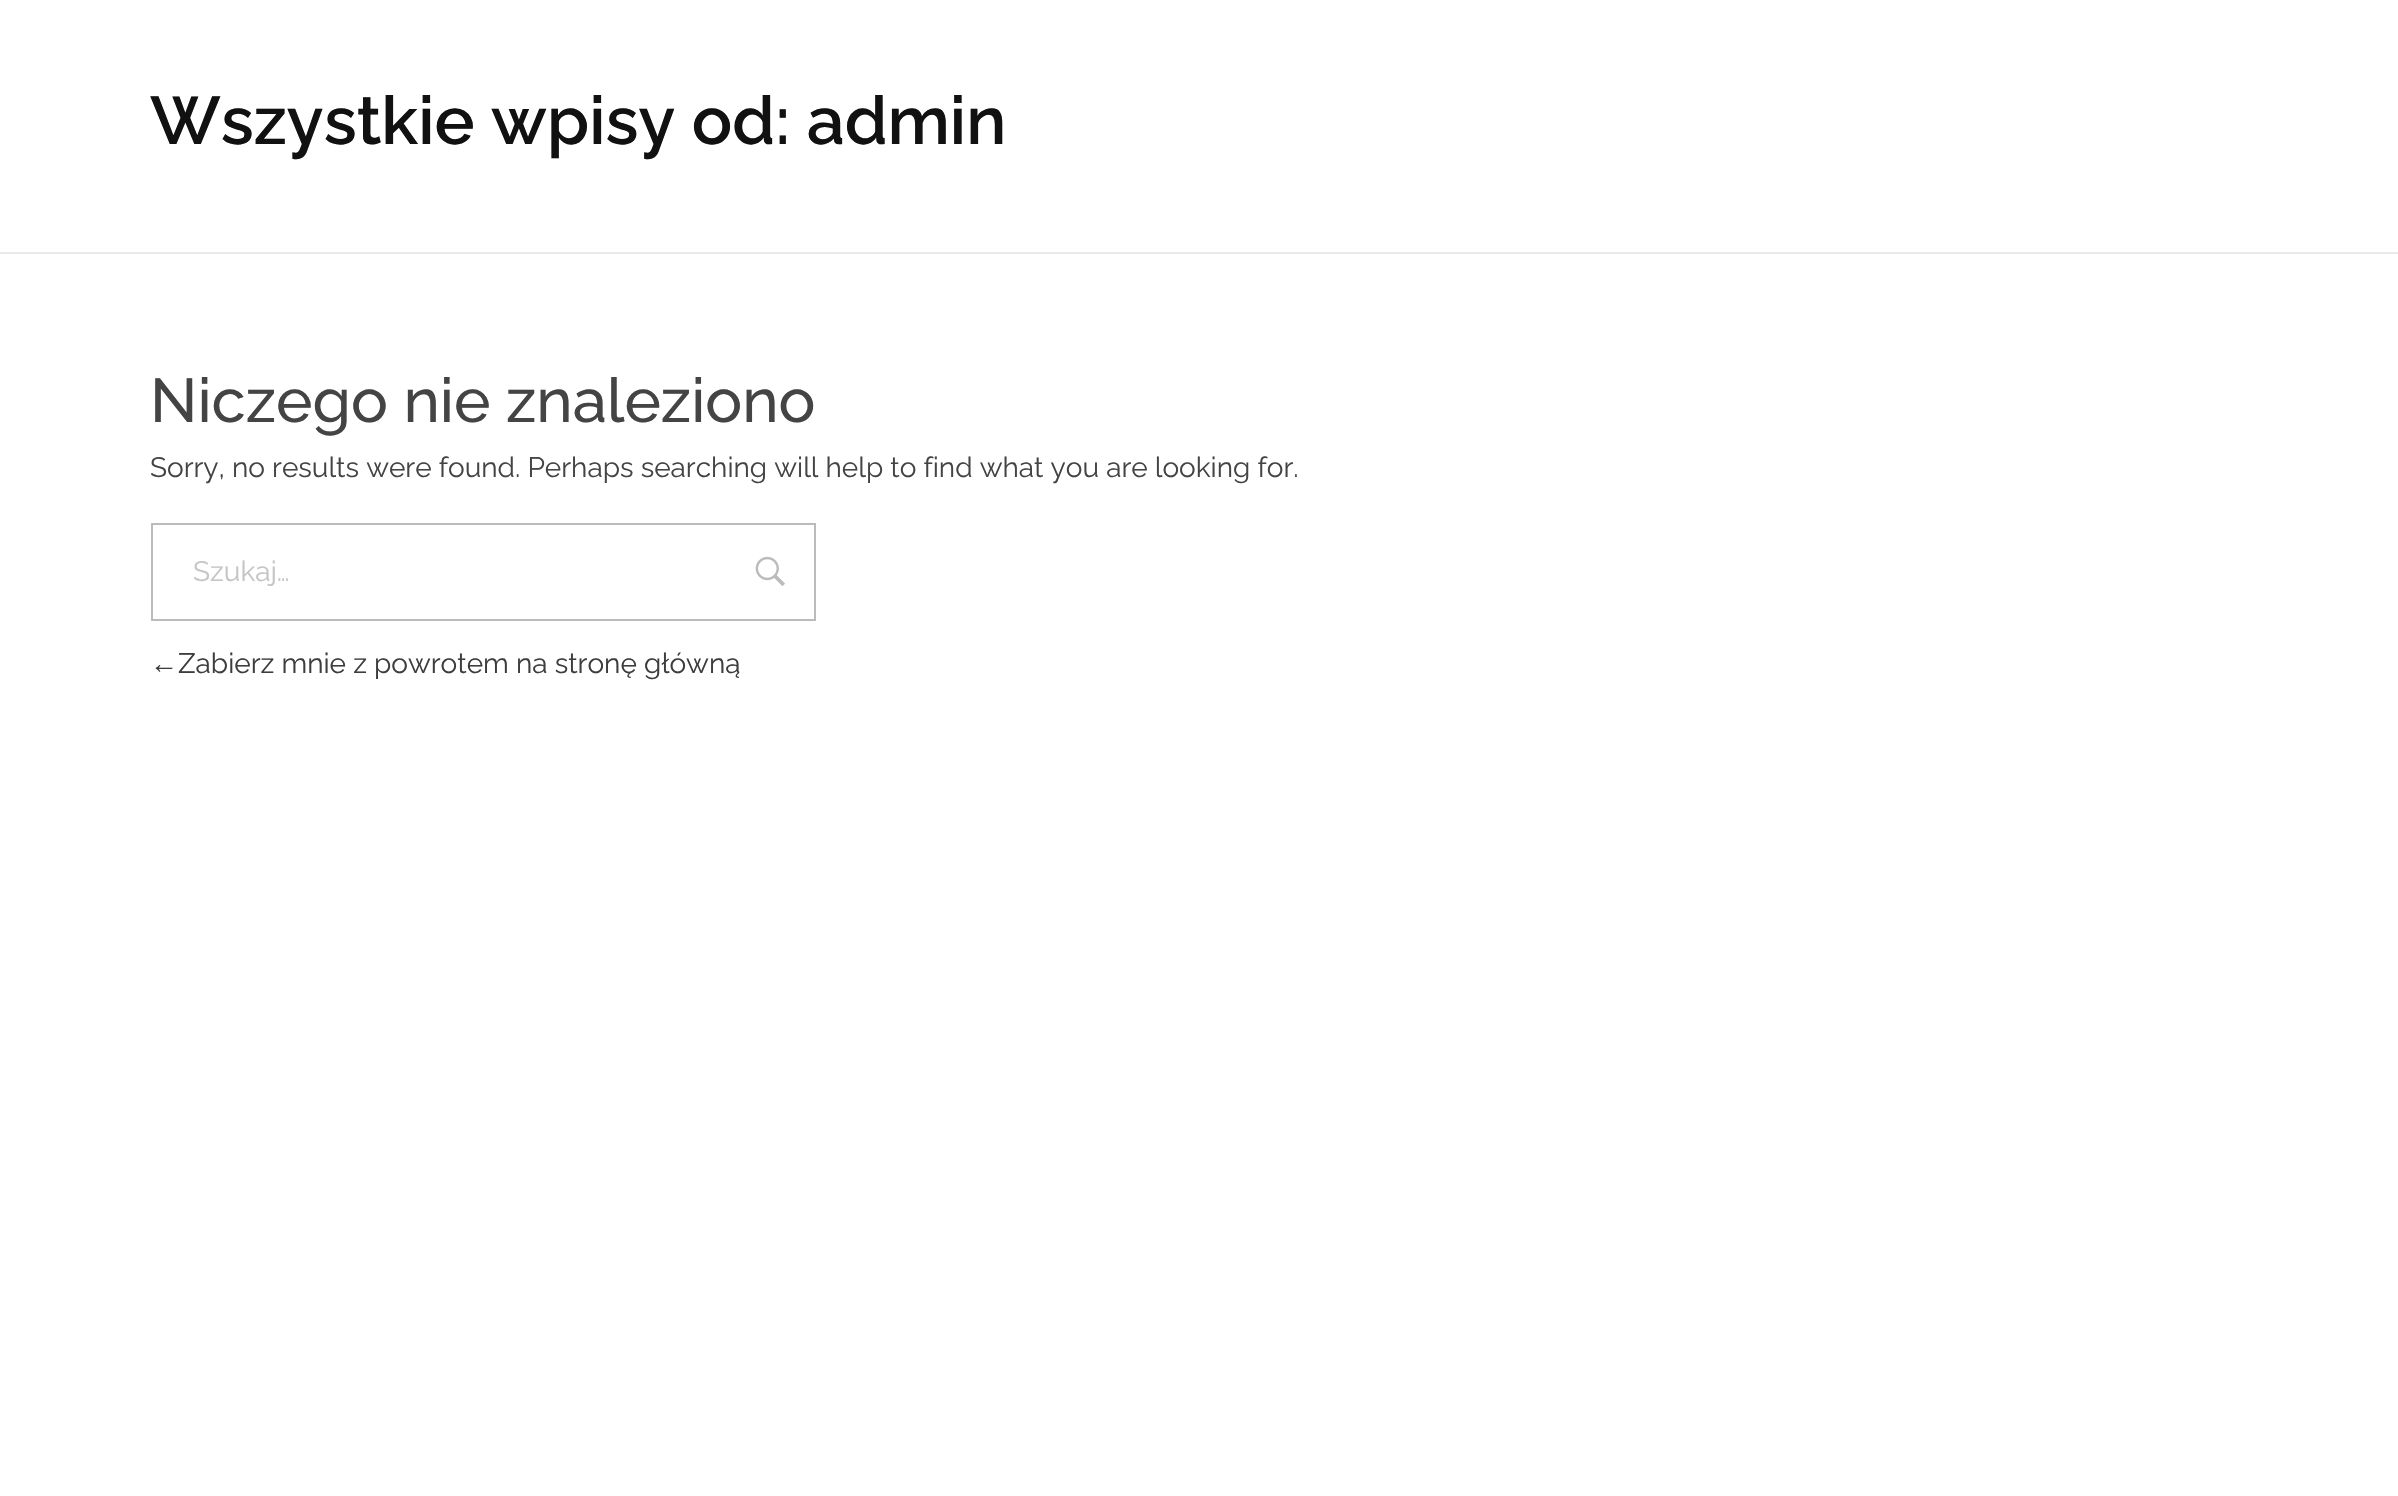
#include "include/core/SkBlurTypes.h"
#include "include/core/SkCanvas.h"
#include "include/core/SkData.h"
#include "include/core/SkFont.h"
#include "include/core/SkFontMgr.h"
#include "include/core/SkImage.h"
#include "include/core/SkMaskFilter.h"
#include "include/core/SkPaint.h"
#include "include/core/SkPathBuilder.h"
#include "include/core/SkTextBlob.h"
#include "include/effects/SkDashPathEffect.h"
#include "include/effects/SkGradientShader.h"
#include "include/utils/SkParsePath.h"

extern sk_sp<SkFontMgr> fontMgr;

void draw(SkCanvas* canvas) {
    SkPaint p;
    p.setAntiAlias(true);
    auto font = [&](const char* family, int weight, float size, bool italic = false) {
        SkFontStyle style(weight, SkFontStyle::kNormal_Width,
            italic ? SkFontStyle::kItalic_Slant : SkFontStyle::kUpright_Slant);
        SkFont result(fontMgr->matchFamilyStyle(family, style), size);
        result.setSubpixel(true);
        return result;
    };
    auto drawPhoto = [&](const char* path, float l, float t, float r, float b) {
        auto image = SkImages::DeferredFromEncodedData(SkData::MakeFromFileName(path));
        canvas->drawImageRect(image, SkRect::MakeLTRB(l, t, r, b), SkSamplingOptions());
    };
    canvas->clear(0xFFFFFFFF);
    p.setColor(0xFFEAEAEA);
    canvas->drawRect(SkRect::MakeLTRB(0, 252, 2398, 254), p);
    auto font1 = font("Raleway", 600, 67.25f);
    p.setColor(0xFF111111);
    canvas->drawString("Wszystkie wpisy od: admin", 150, 144, font1, p);
    auto font2 = font("Raleway", 500, 61.6f);
    p.setColor(0xFF444444);
    canvas->drawString("Niczego nie znaleziono", 150, 422, font2, p);
    auto font3 = font("Raleway", 400, 28);
    canvas->drawString("Sorry, no results were found. Perhaps searching will help to find what you are looking for.", 150, 477, font3, p);
    p.setStyle(SkPaint::kStroke_Style);
    p.setStrokeWidth(2);
    p.setColor(0xFFBBBBBB);
    canvas->drawRect(SkRect::MakeLTRB(152, 524, 815, 620), p);
    p.setStyle(SkPaint::kFill_Style);
    p.setColor(0xFFC5C5C5);
    canvas->drawString("Szukaj…", 193, 581, font3, p);
    drawPhoto("media/1.png", 755, 556, 785, 586);
    auto font4 = font("Liberation Sans", 400, 28);
    p.setColor(0xFF3D3D3D);
    canvas->drawString("←", 150, 673, font4, p);
    canvas->drawString("Zabierz mnie z powrotem na stronę główną", 178, 673, font3, p);
}
